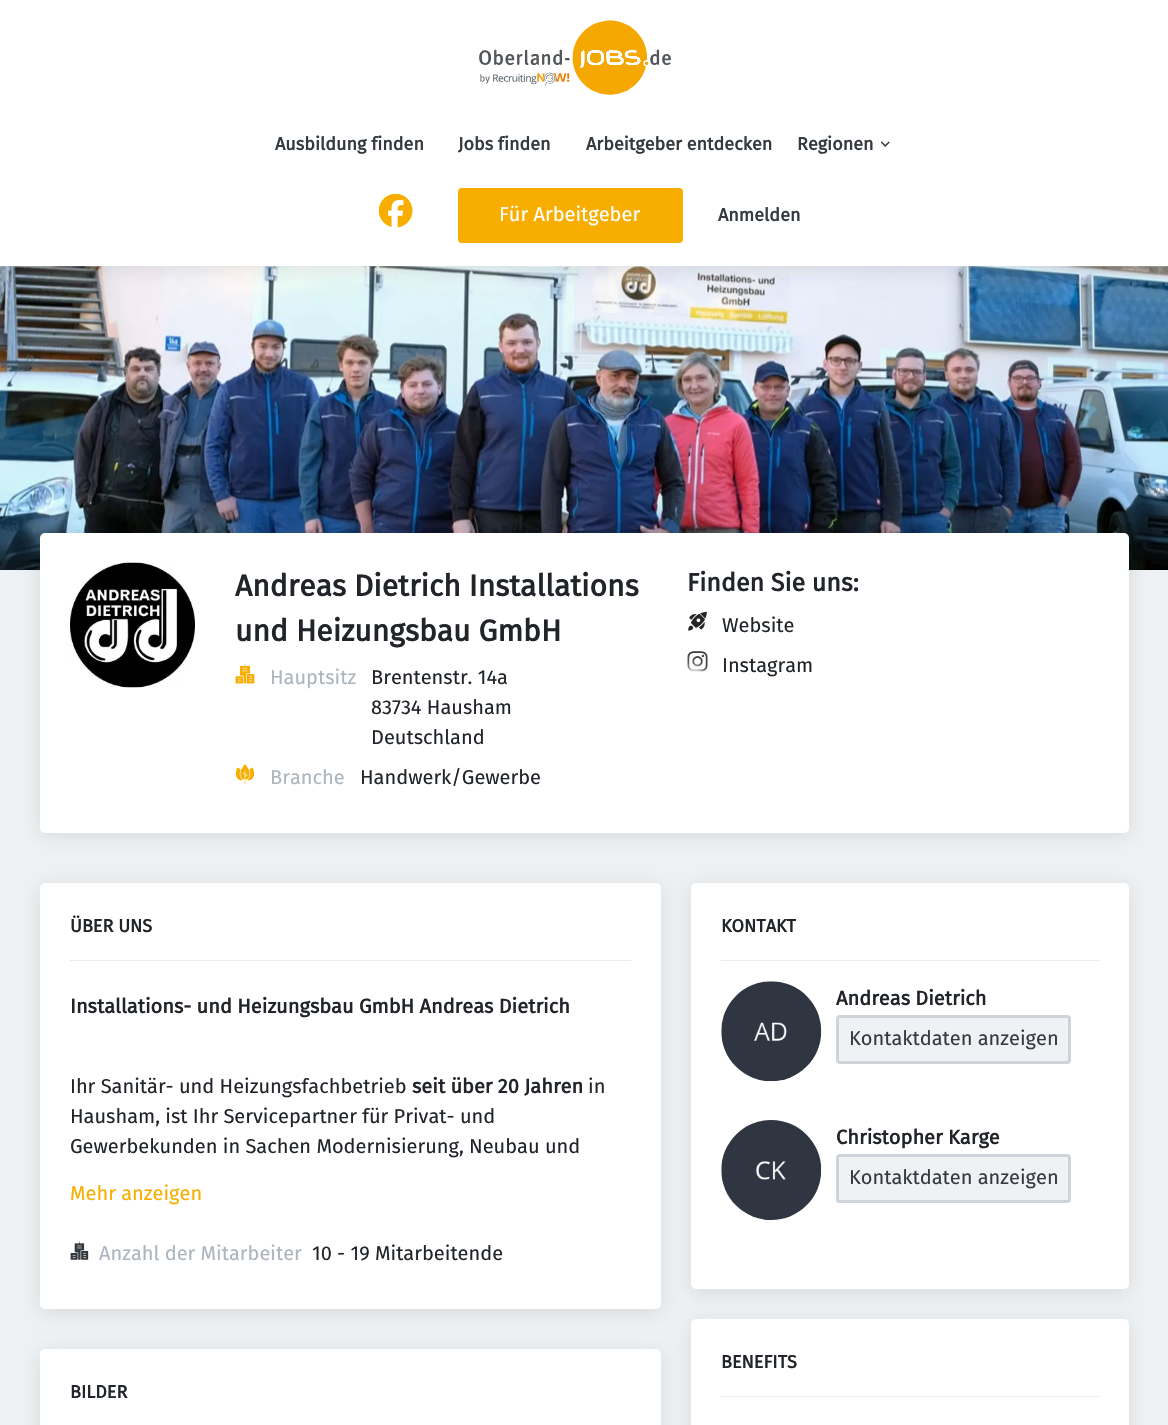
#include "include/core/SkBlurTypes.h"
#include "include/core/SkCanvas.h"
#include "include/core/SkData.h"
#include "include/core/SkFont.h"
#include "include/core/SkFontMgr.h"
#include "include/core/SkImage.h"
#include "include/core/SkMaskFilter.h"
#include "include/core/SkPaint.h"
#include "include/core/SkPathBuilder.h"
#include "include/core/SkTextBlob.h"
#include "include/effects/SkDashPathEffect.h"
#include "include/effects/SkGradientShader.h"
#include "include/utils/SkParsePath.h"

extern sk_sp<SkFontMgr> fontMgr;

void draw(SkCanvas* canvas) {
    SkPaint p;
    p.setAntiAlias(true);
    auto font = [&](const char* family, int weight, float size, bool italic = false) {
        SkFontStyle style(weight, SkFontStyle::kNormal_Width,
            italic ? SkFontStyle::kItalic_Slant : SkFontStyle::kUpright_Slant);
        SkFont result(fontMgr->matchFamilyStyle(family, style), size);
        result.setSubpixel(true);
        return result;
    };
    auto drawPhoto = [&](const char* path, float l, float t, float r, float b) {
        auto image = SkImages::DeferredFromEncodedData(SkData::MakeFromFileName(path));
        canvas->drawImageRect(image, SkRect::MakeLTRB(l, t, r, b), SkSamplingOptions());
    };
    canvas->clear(0xFFEFF2F4);
    drawPhoto("media/4.png", 0, 266, 1168, 570);
    p.setColor(0x1A000000);
    p.setMaskFilter(SkMaskFilter::MakeBlur(kNormal_SkBlurStyle, 9.5f));
    canvas->drawRect(SkRect::MakeLTRB(0, 4, 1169, 270), p);
    p.setMaskFilter(nullptr);
    p.setColor(0xFFFFFFFF);
    canvas->drawRect(SkRect::MakeLTRB(0, 0, 1168, 266), p);
    drawPhoto("media/1.png", 479, 20, 671, 95);
    auto font1 = font("Fira Sans", 700, 18);
    p.setColor(0xFF343A40);
    {
        const struct { const char* s; float x, y; } items[] = {
            {"Ausbildung finden", 275, 150},
            {"Jobs finden", 458, 150},
            {"Arbeitgeber entdecken", 586, 150},
            {"Regionen", 797, 150},
        };
        for (auto [s, x, y] : items) {
            canvas->drawString(s, x, y, font1, p);
        }
    }
    drawPhoto("media/2.png", 880, 141, 890, 147);
    drawPhoto("media/3.png", 379, 194, 413, 228);
    p.setColor(0xFFF8AE00);
    canvas->drawRoundRect(SkRect::MakeLTRB(459.5f, 189.5f, 681.5f, 241.5f), 2.5f, 2.5f, p);
    p.setStyle(SkPaint::kStroke_Style);
    p.setStrokeWidth(3);
    canvas->drawRoundRect(SkRect::MakeLTRB(459.5f, 189.5f, 681.5f, 241.5f), 2.5f, 2.5f, p);
    auto font2 = font("Fira Sans", 400, 20);
    p.setStyle(SkPaint::kFill_Style);
    p.setColor(0xFFFFFFFF);
    canvas->drawString("Für Arbeitgeber", 499, 221, font2, p);
    p.setColor(0xFF343A40);
    canvas->drawString("Anmelden", 718, 221, font1, p);
    p.setColor(0x1A000000);
    p.setMaskFilter(SkMaskFilter::MakeBlur(kNormal_SkBlurStyle, 9.5f));
    canvas->drawRoundRect(SkRect::MakeLTRB(40, 536, 1129, 836), 5, 5, p);
    p.setMaskFilter(nullptr);
    p.setColor(0xFFFFFFFF);
    canvas->drawRoundRect(SkRect::MakeLTRB(40, 533, 1129, 833), 5, 5, p);
    drawPhoto("media/5.png", 70, 562, 195, 688);
    auto font3 = font("Fira Sans", 700, 30);
    p.setColor(0xFF212529);
    canvas->drawString("Andreas Dietrich Installations", 235, 596, font3, p);
    canvas->drawString("und Heizungsbau GmbH", 235, 641, font3, p);
    drawPhoto("media/6.png", 235, 664, 255, 684);
    p.setColor(0xFFADB5BD);
    canvas->drawString("Hauptsitz", 270, 684, font2, p);
    p.setColor(0xFF212529);
    {
        const struct { const char* s; float x, y; } items[] = {
            {"Brentenstr. 14a", 371, 684},
            {"83734 Hausham", 371, 714},
            {"Deutschland", 371, 744},
        };
        for (auto [s, x, y] : items) {
            canvas->drawString(s, x, y, font2, p);
        }
    }
    drawPhoto("media/7.png", 235, 764, 255, 784);
    p.setColor(0xFFADB5BD);
    canvas->drawString("Branche", 270, 784, font2, p);
    p.setColor(0xFF212529);
    canvas->drawString("Handwerk/Gewerbe", 360, 784, font2, p);
    auto font4 = font("Fira Sans", 700, 25);
    canvas->drawString("Finden Sie uns:", 687, 591, font4, p);
    drawPhoto("media/8.png", 688, 611, 707, 631);
    canvas->drawString("Website", 722, 632, font2, p);
    drawPhoto("media/9.png", 687, 651, 708, 672);
    canvas->drawString("Instagram", 722, 672, font2, p);
    p.setColor(0x1A000000);
    p.setMaskFilter(SkMaskFilter::MakeBlur(kNormal_SkBlurStyle, 9.5f));
    canvas->drawRoundRect(SkRect::MakeLTRB(40, 886, 661, 1313), 5, 5, p);
    p.setMaskFilter(nullptr);
    p.setColor(0xFFFFFFFF);
    canvas->drawRoundRect(SkRect::MakeLTRB(40, 883, 661, 1309), 5, 5, p);
    p.setColor(0xFFE9ECEF);
    canvas->drawRect(SkRect::MakeLTRB(70, 960, 631, 961), p);
    p.setColor(0xFF212529);
    canvas->drawString("ÜBER UNS", 70, 932, font1, p);
    auto font5 = font("Fira Sans", 700, 20);
    canvas->drawString("Installations- und Heizungsbau GmbH Andreas Dietrich", 70, 1013, font5, p);
    canvas->drawString("Ihr Sanitär- und Heizungsfachbetrieb", 70, 1093, font2, p);
    canvas->drawString("seit über 20 Jahren", 412, 1093, font5, p);
    {
        const struct { const char* s; float x, y; } items[] = {
            {"in", 588, 1093},
            {"Hausham, ist Ihr Servicepartner für Privat- und", 70, 1123},
            {"Gewerbekunden in Sachen Modernisierung, Neubau und", 70, 1153},
        };
        for (auto [s, x, y] : items) {
            canvas->drawString(s, x, y, font2, p);
        }
    }
    p.setColor(0xFFF8AE00);
    canvas->drawString("Mehr anzeigen", 70, 1200, font2, p);
    drawPhoto("media/10.png", 70, 1241, 89, 1260);
    p.setColor(0xFFADB5BD);
    canvas->drawString("Anzahl der Mitarbeiter", 99, 1260, font2, p);
    p.setColor(0xFF212529);
    canvas->drawString("10 - 19 Mitarbeitende", 312, 1260, font2, p);
    p.setColor(0x1A000000);
    p.setMaskFilter(SkMaskFilter::MakeBlur(kNormal_SkBlurStyle, 9.5f));
    canvas->drawRoundRect(SkRect::MakeLTRB(40, 1353, 661, 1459), 5, 5, p);
    p.setMaskFilter(nullptr);
    p.setColor(0xFFFFFFFF);
    canvas->drawRoundRect(SkRect::MakeLTRB(40, 1349, 661, 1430), 5, 5, p);
    p.setColor(0xFF212529);
    canvas->drawString("BILDER", 70, 1398, font1, p);
    p.setColor(0x1A000000);
    p.setMaskFilter(SkMaskFilter::MakeBlur(kNormal_SkBlurStyle, 9.5f));
    canvas->drawRoundRect(SkRect::MakeLTRB(691, 886, 1129, 1293), 5, 5, p);
    p.setMaskFilter(nullptr);
    p.setColor(0xFFFFFFFF);
    canvas->drawRoundRect(SkRect::MakeLTRB(691, 883, 1129, 1289), 5, 5, p);
    p.setColor(0xFFE9ECEF);
    canvas->drawRect(SkRect::MakeLTRB(721, 960, 1099, 961), p);
    p.setColor(0xFF212529);
    canvas->drawString("KONTAKT", 721, 932, font1, p);
    drawPhoto("media/11.png", 721, 981, 822, 1082);
    canvas->drawString("Andreas Dietrich", 836, 1005, font5, p);
    p.setColor(0xFFEFF2F4);
    canvas->drawRoundRect(SkRect::MakeLTRB(837.5f, 1016.5f, 1069.5f, 1062.5f), 2.5f, 2.5f, p);
    p.setStyle(SkPaint::kStroke_Style);
    p.setColor(0xFFCED4DA);
    canvas->drawRoundRect(SkRect::MakeLTRB(837.5f, 1016.5f, 1069.5f, 1062.5f), 2.5f, 2.5f, p);
    p.setStyle(SkPaint::kFill_Style);
    p.setColor(0xFF343A40);
    canvas->drawString("Kontaktdaten anzeigen", 849, 1045, font2, p);
    drawPhoto("media/12.png", 721, 1120, 822, 1220);
    p.setColor(0xFF212529);
    canvas->drawString("Christopher Karge", 836, 1144, font5, p);
    p.setColor(0xFFEFF2F4);
    canvas->drawRoundRect(SkRect::MakeLTRB(837.5f, 1155.5f, 1069.5f, 1201.5f), 2.5f, 2.5f, p);
    p.setStyle(SkPaint::kStroke_Style);
    p.setColor(0xFFCED4DA);
    canvas->drawRoundRect(SkRect::MakeLTRB(837.5f, 1155.5f, 1069.5f, 1201.5f), 2.5f, 2.5f, p);
    p.setStyle(SkPaint::kFill_Style);
    p.setColor(0xFF343A40);
    canvas->drawString("Kontaktdaten anzeigen", 849, 1184, font2, p);
    p.setColor(0x1A000000);
    p.setMaskFilter(SkMaskFilter::MakeBlur(kNormal_SkBlurStyle, 9.5f));
    canvas->drawRoundRect(SkRect::MakeLTRB(691, 1323, 1129, 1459), 5, 5, p);
    p.setMaskFilter(nullptr);
    p.setColor(0xFFFFFFFF);
    canvas->drawRoundRect(SkRect::MakeLTRB(691, 1319, 1129, 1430), 5, 5, p);
    p.setColor(0xFFE9ECEF);
    canvas->drawRect(SkRect::MakeLTRB(721, 1396, 1099, 1397), p);
    p.setColor(0xFF212529);
    canvas->drawString("BENEFITS", 721, 1368, font1, p);
}
